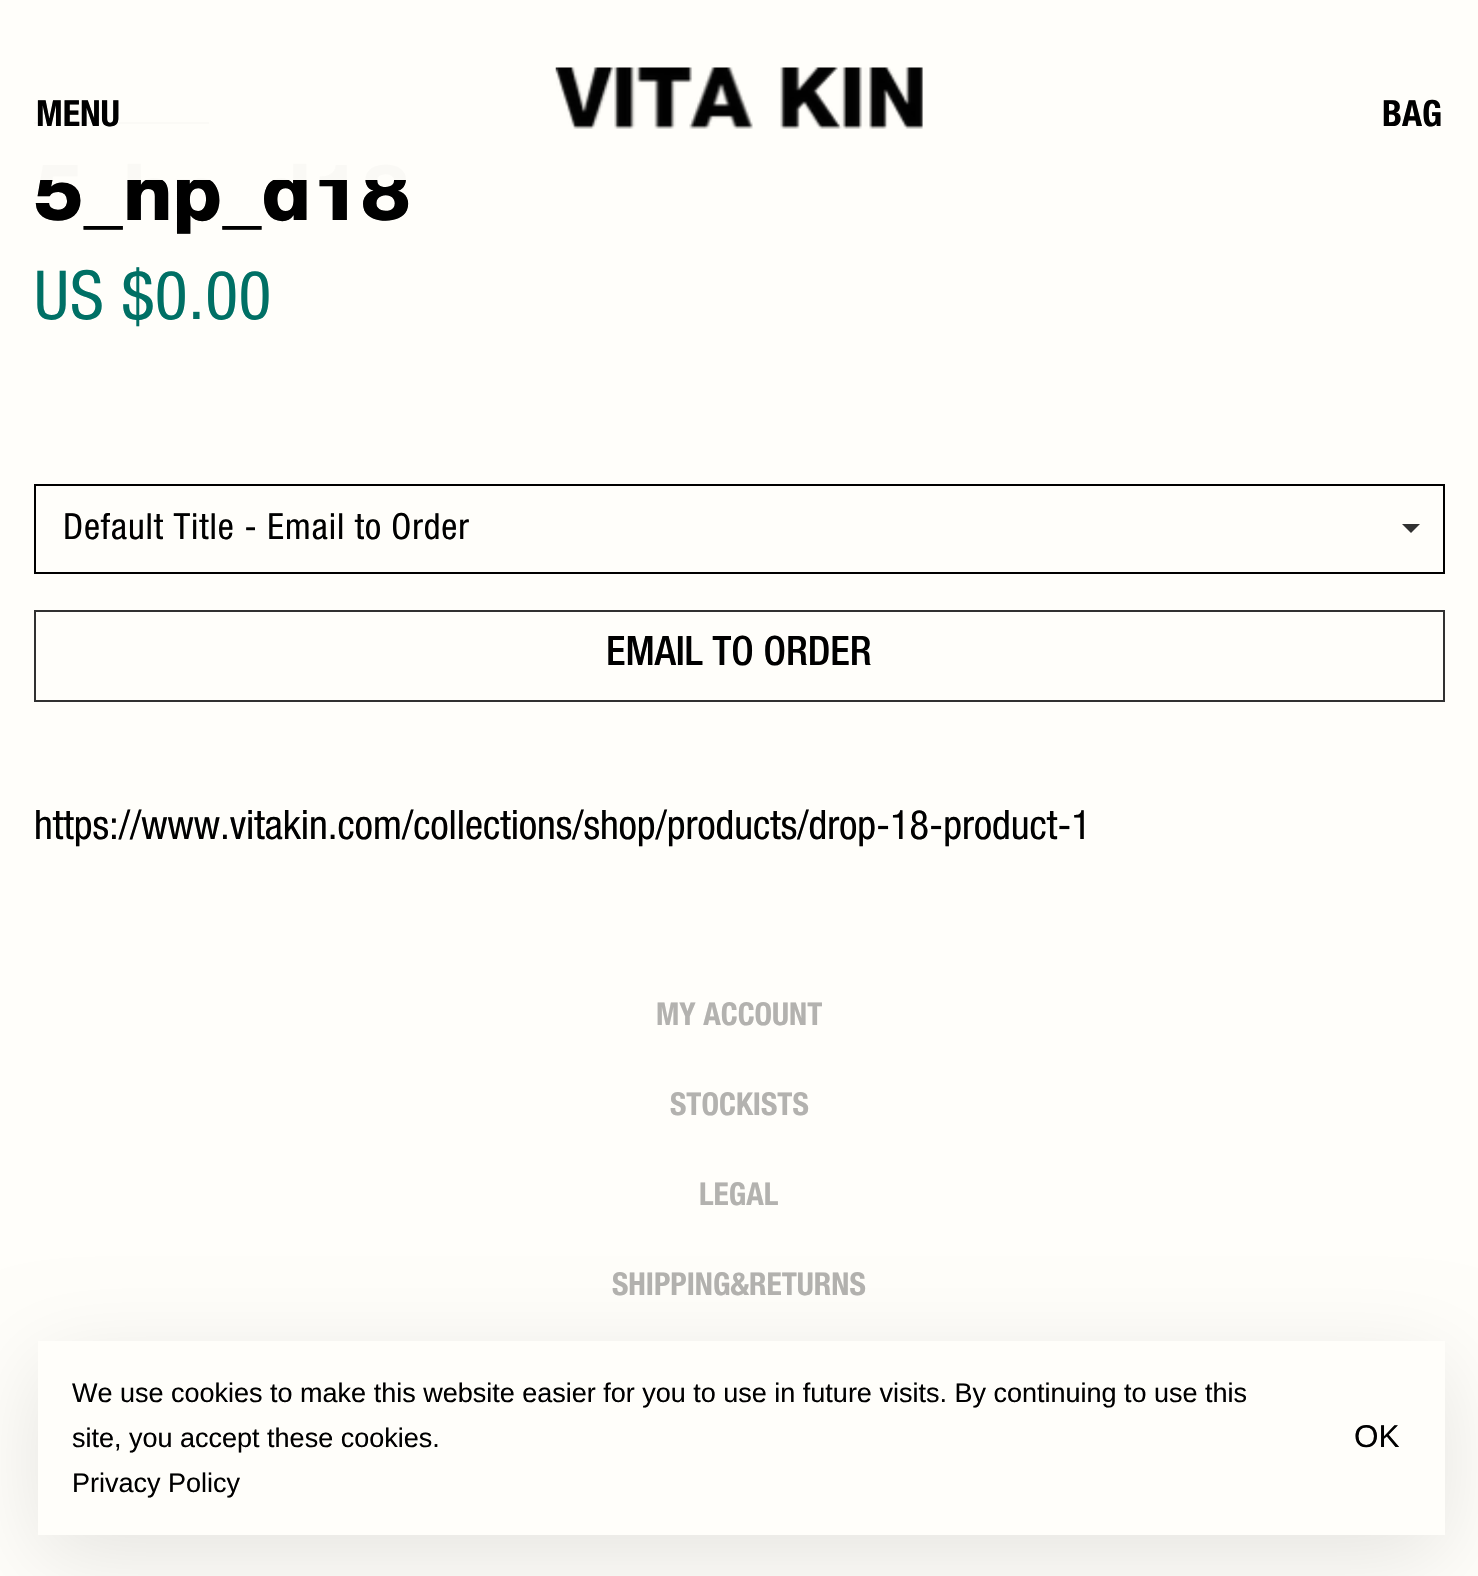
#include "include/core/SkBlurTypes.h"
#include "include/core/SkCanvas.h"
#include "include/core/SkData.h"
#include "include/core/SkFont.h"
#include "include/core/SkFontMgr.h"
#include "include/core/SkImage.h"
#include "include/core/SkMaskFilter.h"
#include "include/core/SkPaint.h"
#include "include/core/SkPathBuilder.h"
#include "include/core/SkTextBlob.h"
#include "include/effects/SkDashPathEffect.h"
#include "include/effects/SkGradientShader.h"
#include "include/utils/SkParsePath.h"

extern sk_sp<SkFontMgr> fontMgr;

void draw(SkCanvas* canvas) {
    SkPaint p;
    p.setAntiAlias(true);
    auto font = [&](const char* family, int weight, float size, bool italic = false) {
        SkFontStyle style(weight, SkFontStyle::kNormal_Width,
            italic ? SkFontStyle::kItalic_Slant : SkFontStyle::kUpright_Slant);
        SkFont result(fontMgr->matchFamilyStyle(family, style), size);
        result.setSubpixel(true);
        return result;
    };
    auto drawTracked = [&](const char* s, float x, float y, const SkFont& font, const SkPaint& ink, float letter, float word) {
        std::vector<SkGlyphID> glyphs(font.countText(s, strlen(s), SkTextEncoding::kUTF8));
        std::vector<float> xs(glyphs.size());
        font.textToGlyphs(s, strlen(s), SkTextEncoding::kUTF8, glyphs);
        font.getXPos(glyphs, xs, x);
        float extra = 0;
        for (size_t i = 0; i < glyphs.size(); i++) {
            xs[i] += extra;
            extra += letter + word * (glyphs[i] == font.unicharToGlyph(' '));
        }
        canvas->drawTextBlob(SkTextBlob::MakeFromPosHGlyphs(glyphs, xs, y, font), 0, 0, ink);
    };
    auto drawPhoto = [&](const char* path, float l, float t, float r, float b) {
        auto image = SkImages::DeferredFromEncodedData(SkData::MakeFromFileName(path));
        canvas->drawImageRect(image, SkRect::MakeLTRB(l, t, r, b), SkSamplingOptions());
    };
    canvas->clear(0xFFFFFEFA);
    p.setColor(0xFF313131);
    canvas->drawRect(SkRect::MakeLTRB(34, 122, 209, 124), p);
    auto font1 = font("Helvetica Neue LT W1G", 700, 78.75f);
    p.setColor(0xFF000000);
    canvas->drawString("5_hp_d18", 34, 220, font1, p);
    p.setColor(0xFAFFFEFA);
    canvas->drawRect(SkRect::MakeLTRB(34, 122, 406, 180), p);
    auto font2 = font("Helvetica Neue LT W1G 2", 700, 36);
    p.setColor(0xFF000000);
    canvas->drawString("MENU", 36, 126, font2, p);
    drawPhoto("media/1.png", 555, 67, 923, 129);
    canvas->drawString("BAG", 1382, 126, font2, p);
    auto font3 = font("Helvetica Neue LT W1G", 400, 67.5f);
    p.setColor(0xFF007065);
    drawTracked("US $0.00", 34, 319, font3, p, 0.9f, 0);
    p.setStyle(SkPaint::kStroke_Style);
    p.setStrokeWidth(2);
    p.setColor(0xFF000000);
    canvas->drawRect(SkRect::MakeLTRB(35, 485, 1444, 573), p);
    auto font4 = font("Helvetica Neue LT W1G", 400, 36);
    p.setStyle(SkPaint::kFill_Style);
    drawTracked("Default Title - Email to Order", 63, 539, font4, p, 0.9f, 0);
    p.setColor(0xFF313131);
    canvas->drawPath(SkPathBuilder().moveTo(1402, 524).lineTo(1420, 524).lineTo(1411, 533).close().detach(), p);
    p.setStyle(SkPaint::kStroke_Style);
    canvas->drawRect(SkRect::MakeLTRB(35, 611, 1444, 701), p);
    auto font5 = font("Helvetica Neue LT W1G", 500, 40.5f);
    p.setStyle(SkPaint::kFill_Style);
    p.setColor(0xFF000000);
    canvas->drawString("EMAIL TO ORDER", 606, 665, font5, p);
    auto font6 = font("Helvetica Neue LT W1G", 400, 40.5f);
    canvas->drawString("https://www.vitakin.com/collections/shop/products/drop-18-product-1", 34, 839, font6, p);
    auto font7 = font("Helvetica Neue LT W1G 2", 700, 31.5f);
    p.setColor(0xFFB3B2AF);
    {
        const struct { const char* s; float x, y; } items[] = {
            {"MY ACCOUNT", 656, 1025},
            {"STOCKISTS", 670, 1115},
            {"LEGAL", 699, 1205},
            {"SHIPPING&RETURNS", 612, 1295},
        };
        for (auto [s, x, y] : items) {
            canvas->drawString(s, x, y, font7, p);
        }
    }
    canvas->save();
    canvas->clipPath(SkPathBuilder(SkPathFillType::kEvenOdd).moveTo(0, 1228).lineTo(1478, 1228).lineTo(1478, 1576).lineTo(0, 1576).close().moveTo(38, 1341).lineTo(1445, 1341).lineTo(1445, 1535).lineTo(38, 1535).close().detach(), true);
    p.setColor(0x1A000000);
    p.setMaskFilter(SkMaskFilter::MakeBlur(kNormal_SkBlurStyle, 45));
    canvas->drawRect(SkRect::MakeLTRB(38, 1364, 1445, 1557), p);
    p.setMaskFilter(nullptr);
    canvas->restore();
    p.setColor(0xF2FFFEFA);
    canvas->drawRect(SkRect::MakeLTRB(38, 1341, 1445, 1535), p);
    auto font8 = font("Liberation Sans", 400, 27);
    p.setColor(0xFF000000);
    {
        const struct { const char* s; float x, y; } items[] = {
            {"We use cookies to make this website easier for you to use in future visits. By continuing to use this", 72, 1402},
            {"site, you accept these cookies.", 72, 1447},
            {"Privacy Policy", 72, 1492},
        };
        for (auto [s, x, y] : items) {
            canvas->drawString(s, x, y, font8, p);
        }
    }
    auto font9 = font("Liberation Sans", 400, 31.5f);
    canvas->drawString("OK", 1354, 1447, font9, p);
}
